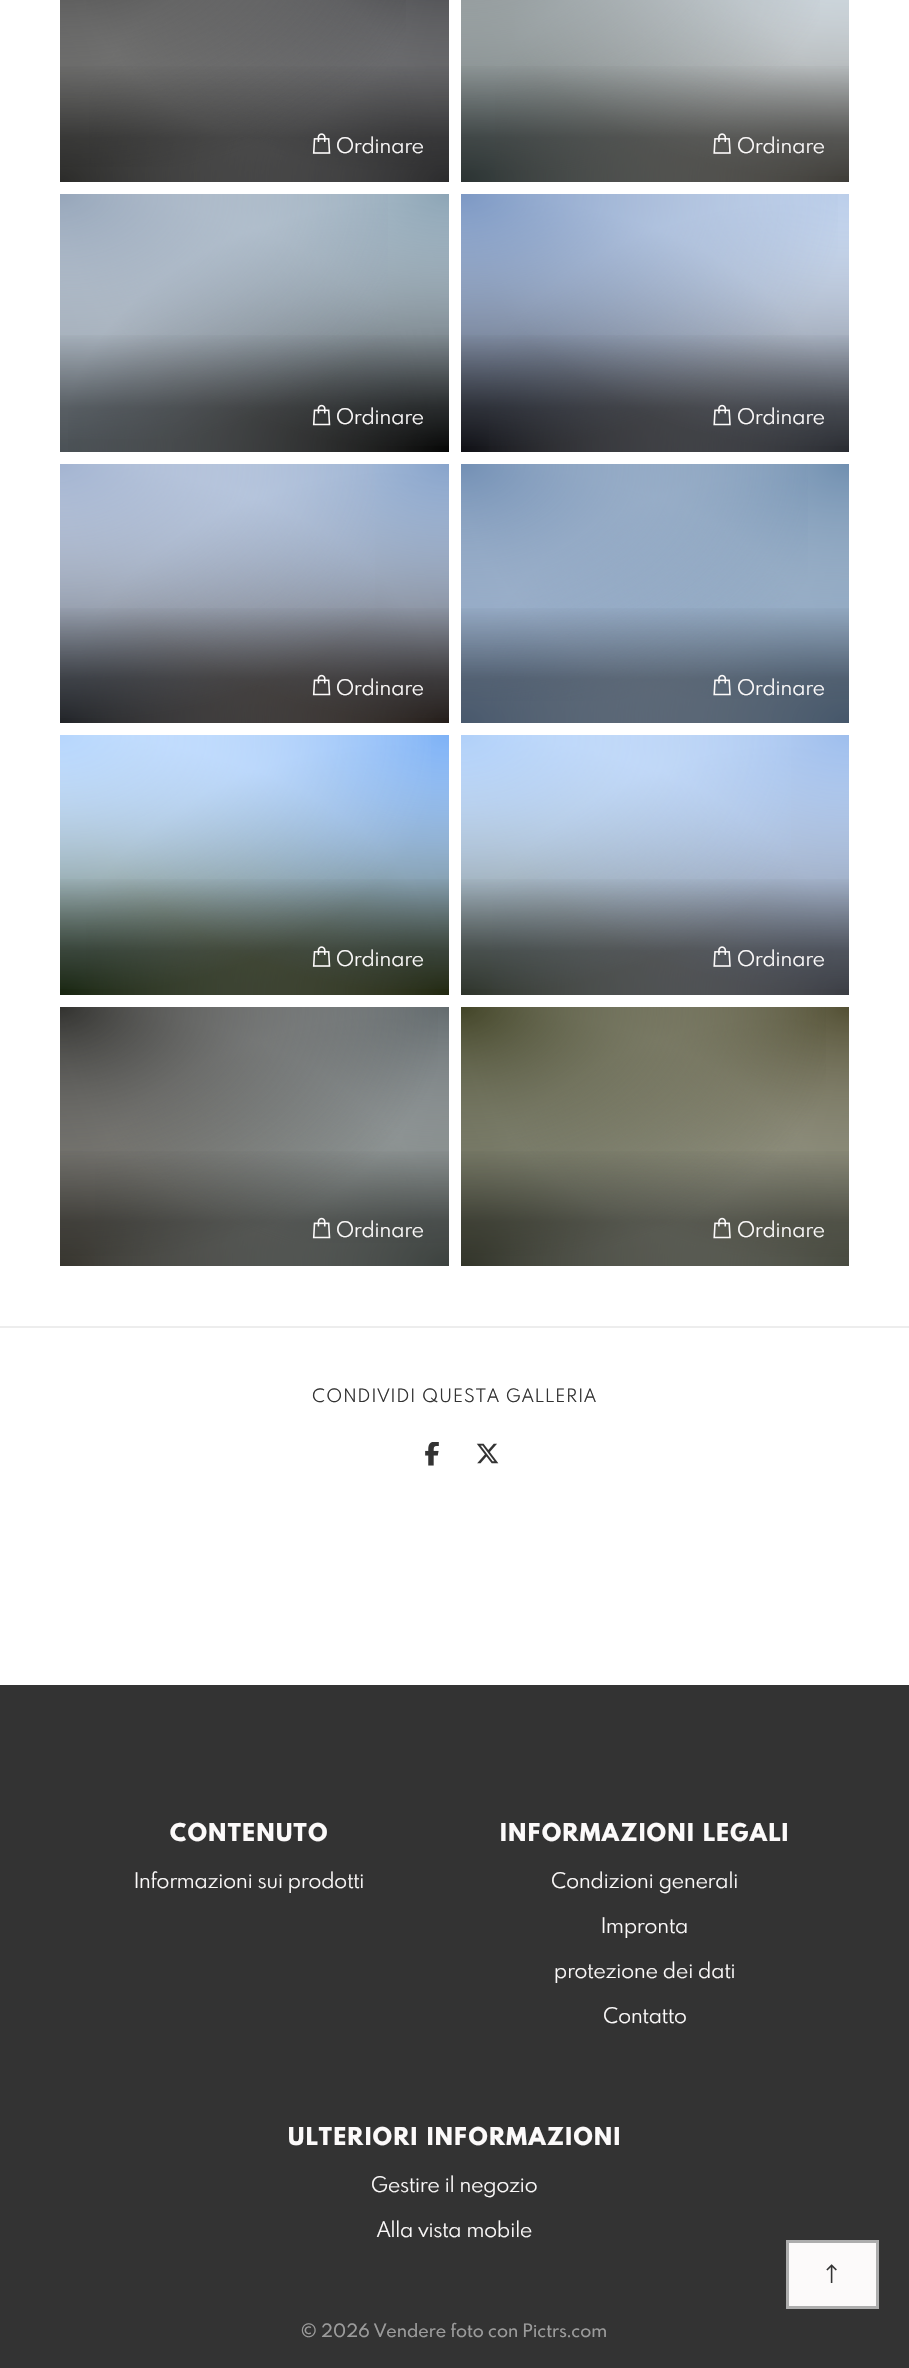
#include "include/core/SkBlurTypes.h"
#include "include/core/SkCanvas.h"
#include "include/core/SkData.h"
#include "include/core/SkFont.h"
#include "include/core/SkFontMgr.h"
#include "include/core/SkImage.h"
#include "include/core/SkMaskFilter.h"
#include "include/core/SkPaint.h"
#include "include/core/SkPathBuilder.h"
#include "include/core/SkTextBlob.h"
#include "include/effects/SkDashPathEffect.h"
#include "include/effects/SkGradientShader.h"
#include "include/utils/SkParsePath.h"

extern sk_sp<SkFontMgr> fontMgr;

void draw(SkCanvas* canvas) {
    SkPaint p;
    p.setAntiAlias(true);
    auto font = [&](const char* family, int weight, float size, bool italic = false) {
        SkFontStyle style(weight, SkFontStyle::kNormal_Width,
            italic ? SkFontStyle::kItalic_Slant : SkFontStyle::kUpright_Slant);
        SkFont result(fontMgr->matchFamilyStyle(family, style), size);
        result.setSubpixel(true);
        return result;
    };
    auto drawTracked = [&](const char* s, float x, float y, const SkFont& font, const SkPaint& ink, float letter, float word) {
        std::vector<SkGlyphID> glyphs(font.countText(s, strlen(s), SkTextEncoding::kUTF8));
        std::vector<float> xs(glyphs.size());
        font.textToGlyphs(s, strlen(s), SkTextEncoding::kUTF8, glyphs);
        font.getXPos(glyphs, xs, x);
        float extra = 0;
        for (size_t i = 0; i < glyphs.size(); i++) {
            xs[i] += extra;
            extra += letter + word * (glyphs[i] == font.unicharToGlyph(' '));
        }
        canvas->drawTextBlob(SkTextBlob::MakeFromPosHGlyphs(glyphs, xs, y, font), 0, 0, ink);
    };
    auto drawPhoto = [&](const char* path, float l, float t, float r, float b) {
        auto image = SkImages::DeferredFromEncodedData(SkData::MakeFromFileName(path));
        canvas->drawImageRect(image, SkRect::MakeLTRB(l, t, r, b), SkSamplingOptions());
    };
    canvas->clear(0xFF333333);
    p.setColor(0xFFFFFFFF);
    canvas->drawRect(SkRect::MakeLTRB(0, 0, 909, 1685), p);
    {
        const SkColor colors[] = {0xFF474744, 0xFFFFFFFF};
        const float stops[] = {0, 1};
        SkMatrix m = SkMatrix::Translate(60, 182).preScale(389, 260);
        p.setShader(SkGradientShader::MakeRadial({0, 0}, 1, colors, stops, 2, SkTileMode::kClamp, 0, &m));
        p.setAlpha(255);
    }
    canvas->drawRect(SkRect::MakeLTRB(60, 0, 444, 182), p);
    {
        const SkColor colors[] = {0xFF474749, 0x00474749};
        const float stops[] = {0, 1};
        SkMatrix m = SkMatrix::Translate(449, 182).preScale(389, 260);
        p.setShader(SkGradientShader::MakeRadial({0, 0}, 1, colors, stops, 2, SkTileMode::kClamp, 0, &m));
        p.setAlpha(255);
    }
    canvas->drawRect(SkRect::MakeLTRB(89, 0, 449, 182), p);
    {
        const SkColor colors[] = {0xFF26272B, 0x0026272B};
        const float stops[] = {0, 1};
        SkMatrix m = SkMatrix::Translate(449, -78).preScale(389, 260);
        p.setShader(SkGradientShader::MakeRadial({0, 0}, 1, colors, stops, 2, SkTileMode::kClamp, 0, &m));
        p.setAlpha(255);
    }
    canvas->drawRect(SkRect::MakeLTRB(86, 0, 449, 170), p);
    {
        const SkColor colors[] = {0xFF333333, 0x00333333};
        const float stops[] = {0, 1};
        SkMatrix m = SkMatrix::Translate(60, -78).preScale(389, 260);
        p.setShader(SkGradientShader::MakeRadial({0, 0}, 1, colors, stops, 2, SkTileMode::kClamp, 0, &m));
        p.setAlpha(255);
    }
    canvas->drawRect(SkRect::MakeLTRB(60, 0, 406, 167), p);
    {
        const SkColor colors[] = {0x00000000, 0x00000000, 0x66000000};
        const float stops[] = {0, 0.54f, 0.83f};
        const SkPoint ends[] = {{254, -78}, {254, 182}};
        p.setShader(SkGradientShader::MakeLinear(ends, colors, stops, 3, SkTileMode::kClamp));
        p.setAlpha(255);
    }
    canvas->drawRect(SkRect::MakeLTRB(60, 66, 449, 182), p);
    drawPhoto("media/1.png", 312, 133, 331, 154);
    auto font1 = font("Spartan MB", 400, 21);
    p.setShader(nullptr);
    p.setColor(0xFFFCFAFA);
    canvas->drawString("Ordinare", 336, 153, font1, p);
    {
        const SkColor colors[] = {0xFF475554, 0xFFFFFFFF};
        const float stops[] = {0, 1};
        SkMatrix m = SkMatrix::Translate(461, 182).preScale(389, 260);
        p.setShader(SkGradientShader::MakeRadial({0, 0}, 1, colors, stops, 2, SkTileMode::kClamp, 0, &m));
        p.setAlpha(255);
    }
    canvas->drawRect(SkRect::MakeLTRB(461, 0, 845, 182), p);
    {
        const SkColor colors[] = {0xFF68655D, 0x0068655D};
        const float stops[] = {0, 1};
        SkMatrix m = SkMatrix::Translate(849, 182).preScale(389, 260);
        p.setShader(SkGradientShader::MakeRadial({0, 0}, 1, colors, stops, 2, SkTileMode::kClamp, 0, &m));
        p.setAlpha(255);
    }
    canvas->drawRect(SkRect::MakeLTRB(495, 0, 849, 182), p);
    {
        const SkColor colors[] = {0xFFC8D5DF, 0x00C8D5DF};
        const float stops[] = {0, 1};
        SkMatrix m = SkMatrix::Translate(849, -78).preScale(389, 260);
        p.setShader(SkGradientShader::MakeRadial({0, 0}, 1, colors, stops, 2, SkTileMode::kClamp, 0, &m));
        p.setAlpha(255);
    }
    canvas->drawRect(SkRect::MakeLTRB(515, 0, 849, 176), p);
    {
        const SkColor colors[] = {0xFF818A8D, 0x00818A8D};
        const float stops[] = {0, 1};
        SkMatrix m = SkMatrix::Translate(461, -78).preScale(389, 260);
        p.setShader(SkGradientShader::MakeRadial({0, 0}, 1, colors, stops, 2, SkTileMode::kClamp, 0, &m));
        p.setAlpha(255);
    }
    canvas->drawRect(SkRect::MakeLTRB(461, 0, 820, 170), p);
    {
        const SkColor colors[] = {0x00000000, 0x00000000, 0x66000000};
        const float stops[] = {0, 0.54f, 0.83f};
        const SkPoint ends[] = {{655, -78}, {655, 182}};
        p.setShader(SkGradientShader::MakeLinear(ends, colors, stops, 3, SkTileMode::kClamp));
        p.setAlpha(255);
    }
    canvas->drawRect(SkRect::MakeLTRB(461, 66, 849, 182), p);
    drawPhoto("media/2.png", 713, 133, 731, 154);
    p.setShader(nullptr);
    p.setColor(0xFFFCFAFA);
    canvas->drawString("Ordinare", 737, 153, font1, p);
    {
        const SkColor colors[] = {0xFF7B868E, 0xFFFFFFFF};
        const float stops[] = {0, 1};
        SkMatrix m = SkMatrix::Translate(60, 452).preScale(389, 258);
        p.setShader(SkGradientShader::MakeRadial({0, 0}, 1, colors, stops, 2, SkTileMode::kClamp, 0, &m));
        p.setAlpha(255);
    }
    canvas->drawRect(SkRect::MakeLTRB(60, 199, 442, 452), p);
    {
        const SkColor colors[] = {0xFF090A09, 0x00090A09};
        const float stops[] = {0, 1};
        SkMatrix m = SkMatrix::Translate(449, 452).preScale(389, 258);
        p.setShader(SkGradientShader::MakeRadial({0, 0}, 1, colors, stops, 2, SkTileMode::kClamp, 0, &m));
        p.setAlpha(255);
    }
    canvas->drawRect(SkRect::MakeLTRB(68, 200, 449, 452), p);
    {
        const SkColor colors[] = {0xFF8DA5B6, 0x008DA5B6};
        const float stops[] = {0, 1};
        SkMatrix m = SkMatrix::Translate(449, 194).preScale(389, 258);
        p.setShader(SkGradientShader::MakeRadial({0, 0}, 1, colors, stops, 2, SkTileMode::kClamp, 0, &m));
        p.setAlpha(255);
    }
    canvas->drawRect(SkRect::MakeLTRB(68, 194, 449, 446), p);
    {
        const SkColor colors[] = {0xFF96A6BA, 0x0096A6BA};
        const float stops[] = {0, 1};
        SkMatrix m = SkMatrix::Translate(60, 194).preScale(389, 258);
        p.setShader(SkGradientShader::MakeRadial({0, 0}, 1, colors, stops, 2, SkTileMode::kClamp, 0, &m));
        p.setAlpha(255);
    }
    canvas->drawRect(SkRect::MakeLTRB(60, 194, 388, 439), p);
    {
        const SkColor colors[] = {0x00000000, 0x00000000, 0x66000000};
        const float stops[] = {0, 0.53f, 0.83f};
        const SkPoint ends[] = {{254, 194}, {254, 452}};
        p.setShader(SkGradientShader::MakeLinear(ends, colors, stops, 3, SkTileMode::kClamp));
        p.setAlpha(255);
    }
    canvas->drawRect(SkRect::MakeLTRB(60, 335, 449, 452), p);
    drawPhoto("media/3.png", 312, 404, 331, 426);
    p.setShader(nullptr);
    p.setColor(0xFFFCFAFA);
    canvas->drawString("Ordinare", 336, 424, font1, p);
    {
        const SkColor colors[] = {0xFF191A23, 0xFFFFFFFF};
        const float stops[] = {0, 1};
        SkMatrix m = SkMatrix::Translate(461, 452).preScale(389, 258);
        p.setShader(SkGradientShader::MakeRadial({0, 0}, 1, colors, stops, 2, SkTileMode::kClamp, 0, &m));
        p.setAlpha(255);
    }
    canvas->drawRect(SkRect::MakeLTRB(461, 197, 846, 452), p);
    {
        const SkColor colors[] = {0xFF444852, 0x00444852};
        const float stops[] = {0, 1};
        SkMatrix m = SkMatrix::Translate(849, 452).preScale(389, 258);
        p.setShader(SkGradientShader::MakeRadial({0, 0}, 1, colors, stops, 2, SkTileMode::kClamp, 0, &m));
        p.setAlpha(255);
    }
    canvas->drawRect(SkRect::MakeLTRB(489, 200, 849, 452), p);
    {
        const SkColor colors[] = {0xFFBBCEEA, 0x00BBCEEA};
        const float stops[] = {0, 1};
        SkMatrix m = SkMatrix::Translate(849, 194).preScale(389, 258);
        p.setShader(SkGradientShader::MakeRadial({0, 0}, 1, colors, stops, 2, SkTileMode::kClamp, 0, &m));
        p.setAlpha(255);
    }
    canvas->drawRect(SkRect::MakeLTRB(472, 194, 849, 446), p);
    {
        const SkColor colors[] = {0xFF7C98C4, 0x007C98C4};
        const float stops[] = {0, 1};
        SkMatrix m = SkMatrix::Translate(461, 194).preScale(389, 258);
        p.setShader(SkGradientShader::MakeRadial({0, 0}, 1, colors, stops, 2, SkTileMode::kClamp, 0, &m));
        p.setAlpha(255);
    }
    canvas->drawRect(SkRect::MakeLTRB(461, 194, 838, 446), p);
    {
        const SkColor colors[] = {0x00000000, 0x00000000, 0x66000000};
        const float stops[] = {0, 0.53f, 0.83f};
        const SkPoint ends[] = {{655, 194}, {655, 452}};
        p.setShader(SkGradientShader::MakeLinear(ends, colors, stops, 3, SkTileMode::kClamp));
        p.setAlpha(255);
    }
    canvas->drawRect(SkRect::MakeLTRB(461, 335, 849, 452), p);
    drawPhoto("media/4.png", 713, 404, 731, 426);
    p.setShader(nullptr);
    p.setColor(0xFFFCFAFA);
    canvas->drawString("Ordinare", 737, 424, font1, p);
    {
        const SkColor colors[] = {0xFF373B42, 0xFFFFFFFF};
        const float stops[] = {0, 1};
        SkMatrix m = SkMatrix::Translate(60, 723).preScale(389, 260);
        p.setShader(SkGradientShader::MakeRadial({0, 0}, 1, colors, stops, 2, SkTileMode::kClamp, 0, &m));
        p.setAlpha(255);
    }
    canvas->drawRect(SkRect::MakeLTRB(60, 466, 445, 723), p);
    {
        const SkColor colors[] = {0xFF3C302A, 0x003C302A};
        const float stops[] = {0, 1};
        SkMatrix m = SkMatrix::Translate(449, 723).preScale(389, 260);
        p.setShader(SkGradientShader::MakeRadial({0, 0}, 1, colors, stops, 2, SkTileMode::kClamp, 0, &m));
        p.setAlpha(255);
    }
    canvas->drawRect(SkRect::MakeLTRB(80, 469, 449, 723), p);
    {
        const SkColor colors[] = {0xFF88A4CB, 0x0088A4CB};
        const float stops[] = {0, 1};
        SkMatrix m = SkMatrix::Translate(449, 464).preScale(389, 260);
        p.setShader(SkGradientShader::MakeRadial({0, 0}, 1, colors, stops, 2, SkTileMode::kClamp, 0, &m));
        p.setAlpha(255);
    }
    canvas->drawRect(SkRect::MakeLTRB(68, 464, 449, 718), p);
    {
        const SkColor colors[] = {0xFFA3B4D1, 0x00A3B4D1};
        const float stops[] = {0, 1};
        SkMatrix m = SkMatrix::Translate(60, 464).preScale(389, 260);
        p.setShader(SkGradientShader::MakeRadial({0, 0}, 1, colors, stops, 2, SkTileMode::kClamp, 0, &m));
        p.setAlpha(255);
    }
    canvas->drawRect(SkRect::MakeLTRB(60, 464, 375, 718), p);
    {
        const SkColor colors[] = {0x00000000, 0x00000000, 0x66000000};
        const float stops[] = {0, 0.54f, 0.83f};
        const SkPoint ends[] = {{254, 464}, {254, 723}};
        p.setShader(SkGradientShader::MakeLinear(ends, colors, stops, 3, SkTileMode::kClamp));
        p.setAlpha(255);
    }
    canvas->drawRect(SkRect::MakeLTRB(60, 608, 449, 723), p);
    drawPhoto("media/5.png", 312, 674, 331, 696);
    p.setShader(nullptr);
    p.setColor(0xFFFCFAFA);
    canvas->drawString("Ordinare", 336, 695, font1, p);
    {
        const SkColor colors[] = {0xFF7893B5, 0xFFFFFFFF};
        const float stops[] = {0, 1};
        SkMatrix m = SkMatrix::Translate(461, 723).preScale(389, 260);
        p.setShader(SkGradientShader::MakeRadial({0, 0}, 1, colors, stops, 2, SkTileMode::kClamp, 0, &m));
        p.setAlpha(255);
    }
    canvas->drawRect(SkRect::MakeLTRB(461, 468, 843, 723), p);
    {
        const SkColor colors[] = {0xFF7390B1, 0x007390B1};
        const float stops[] = {0, 1};
        SkMatrix m = SkMatrix::Translate(849, 723).preScale(389, 260);
        p.setShader(SkGradientShader::MakeRadial({0, 0}, 1, colors, stops, 2, SkTileMode::kClamp, 0, &m));
        p.setAlpha(255);
    }
    canvas->drawRect(SkRect::MakeLTRB(490, 469, 849, 723), p);
    {
        const SkColor colors[] = {0xFF708FB0, 0x00708FB0};
        const float stops[] = {0, 1};
        SkMatrix m = SkMatrix::Translate(849, 464).preScale(389, 260);
        p.setShader(SkGradientShader::MakeRadial({0, 0}, 1, colors, stops, 2, SkTileMode::kClamp, 0, &m));
        p.setAlpha(255);
    }
    canvas->drawRect(SkRect::MakeLTRB(468, 464, 849, 699), p);
    {
        const SkColor colors[] = {0xFF728FB4, 0x00728FB4};
        const float stops[] = {0, 1};
        SkMatrix m = SkMatrix::Translate(461, 464).preScale(389, 260);
        p.setShader(SkGradientShader::MakeRadial({0, 0}, 1, colors, stops, 2, SkTileMode::kClamp, 0, &m));
        p.setAlpha(255);
    }
    canvas->drawRect(SkRect::MakeLTRB(461, 464, 808, 701), p);
    {
        const SkColor colors[] = {0x00000000, 0x00000000, 0x66000000};
        const float stops[] = {0, 0.54f, 0.83f};
        const SkPoint ends[] = {{655, 464}, {655, 723}};
        p.setShader(SkGradientShader::MakeLinear(ends, colors, stops, 3, SkTileMode::kClamp));
        p.setAlpha(255);
    }
    canvas->drawRect(SkRect::MakeLTRB(461, 608, 849, 723), p);
    drawPhoto("media/6.png", 713, 674, 731, 696);
    p.setShader(nullptr);
    p.setColor(0xFFFCFAFA);
    canvas->drawString("Ordinare", 737, 695, font1, p);
    {
        const SkColor colors[] = {0xFF273D19, 0xFFFFFFFF};
        const float stops[] = {0, 1};
        SkMatrix m = SkMatrix::Translate(60, 995).preScale(389, 260);
        p.setShader(SkGradientShader::MakeRadial({0, 0}, 1, colors, stops, 2, SkTileMode::kClamp, 0, &m));
        p.setAlpha(255);
    }
    canvas->drawRect(SkRect::MakeLTRB(60, 738, 445, 995), p);
    {
        const SkColor colors[] = {0xFF37421A, 0x0037421A};
        const float stops[] = {0, 1};
        SkMatrix m = SkMatrix::Translate(449, 995).preScale(389, 260);
        p.setShader(SkGradientShader::MakeRadial({0, 0}, 1, colors, stops, 2, SkTileMode::kClamp, 0, &m));
        p.setAlpha(255);
    }
    canvas->drawRect(SkRect::MakeLTRB(86, 741, 449, 995), p);
    {
        const SkColor colors[] = {0xFF7EB2F6, 0x007EB2F6};
        const float stops[] = {0, 1};
        SkMatrix m = SkMatrix::Translate(449, 735).preScale(389, 260);
        p.setShader(SkGradientShader::MakeRadial({0, 0}, 1, colors, stops, 2, SkTileMode::kClamp, 0, &m));
        p.setAlpha(255);
    }
    canvas->drawRect(SkRect::MakeLTRB(68, 735, 449, 989), p);
    {
        const SkColor colors[] = {0xFFB6D6FD, 0x00B6D6FD};
        const float stops[] = {0, 1};
        SkMatrix m = SkMatrix::Translate(60, 735).preScale(389, 260);
        p.setShader(SkGradientShader::MakeRadial({0, 0}, 1, colors, stops, 2, SkTileMode::kClamp, 0, &m));
        p.setAlpha(255);
    }
    canvas->drawRect(SkRect::MakeLTRB(60, 735, 431, 989), p);
    {
        const SkColor colors[] = {0x00000000, 0x00000000, 0x66000000};
        const float stops[] = {0, 0.54f, 0.83f};
        const SkPoint ends[] = {{254, 735}, {254, 995}};
        p.setShader(SkGradientShader::MakeLinear(ends, colors, stops, 3, SkTileMode::kClamp));
        p.setAlpha(255);
    }
    canvas->drawRect(SkRect::MakeLTRB(60, 879, 449, 995), p);
    drawPhoto("media/7.png", 312, 946, 331, 967);
    p.setShader(nullptr);
    p.setColor(0xFFFCFAFA);
    canvas->drawString("Ordinare", 336, 966, font1, p);
    {
        const SkColor colors[] = {0xFF4C5647, 0xFFFFFFFF};
        const float stops[] = {0, 1};
        SkMatrix m = SkMatrix::Translate(461, 995).preScale(389, 260);
        p.setShader(SkGradientShader::MakeRadial({0, 0}, 1, colors, stops, 2, SkTileMode::kClamp, 0, &m));
        p.setAlpha(255);
    }
    canvas->drawRect(SkRect::MakeLTRB(461, 739, 845, 995), p);
    {
        const SkColor colors[] = {0xFF626671, 0x00626671};
        const float stops[] = {0, 1};
        SkMatrix m = SkMatrix::Translate(849, 995).preScale(389, 260);
        p.setShader(SkGradientShader::MakeRadial({0, 0}, 1, colors, stops, 2, SkTileMode::kClamp, 0, &m));
        p.setAlpha(255);
    }
    canvas->drawRect(SkRect::MakeLTRB(492, 741, 849, 995), p);
    {
        const SkColor colors[] = {0xFF9EBEED, 0x009EBEED};
        const float stops[] = {0, 1};
        SkMatrix m = SkMatrix::Translate(849, 735).preScale(389, 260);
        p.setShader(SkGradientShader::MakeRadial({0, 0}, 1, colors, stops, 2, SkTileMode::kClamp, 0, &m));
        p.setAlpha(255);
    }
    canvas->drawRect(SkRect::MakeLTRB(468, 735, 849, 989), p);
    {
        const SkColor colors[] = {0xFFB0D0F9, 0x00B0D0F9};
        const float stops[] = {0, 1};
        SkMatrix m = SkMatrix::Translate(461, 735).preScale(389, 260);
        p.setShader(SkGradientShader::MakeRadial({0, 0}, 1, colors, stops, 2, SkTileMode::kClamp, 0, &m));
        p.setAlpha(255);
    }
    canvas->drawRect(SkRect::MakeLTRB(461, 735, 791, 989), p);
    {
        const SkColor colors[] = {0x00000000, 0x00000000, 0x66000000};
        const float stops[] = {0, 0.54f, 0.83f};
        const SkPoint ends[] = {{655, 735}, {655, 995}};
        p.setShader(SkGradientShader::MakeLinear(ends, colors, stops, 3, SkTileMode::kClamp));
        p.setAlpha(255);
    }
    canvas->drawRect(SkRect::MakeLTRB(461, 879, 849, 995), p);
    drawPhoto("media/8.png", 713, 946, 731, 967);
    p.setShader(nullptr);
    p.setColor(0xFFFCFAFA);
    canvas->drawString("Ordinare", 737, 966, font1, p);
    {
        const SkColor colors[] = {0xFF5B584D, 0xFFFFFFFF};
        const float stops[] = {0, 1};
        SkMatrix m = SkMatrix::Translate(60, 1266).preScale(389, 260);
        p.setShader(SkGradientShader::MakeRadial({0, 0}, 1, colors, stops, 2, SkTileMode::kClamp, 0, &m));
        p.setAlpha(255);
    }
    canvas->drawRect(SkRect::MakeLTRB(60, 1010, 444, 1266), p);
    {
        const SkColor colors[] = {0xFF646D68, 0x00646D68};
        const float stops[] = {0, 1};
        SkMatrix m = SkMatrix::Translate(449, 1266).preScale(389, 260);
        p.setShader(SkGradientShader::MakeRadial({0, 0}, 1, colors, stops, 2, SkTileMode::kClamp, 0, &m));
        p.setAlpha(255);
    }
    canvas->drawRect(SkRect::MakeLTRB(95, 1012, 449, 1266), p);
    {
        const SkColor colors[] = {0xFF636B6E, 0x00636B6E};
        const float stops[] = {0, 1};
        SkMatrix m = SkMatrix::Translate(449, 1007).preScale(389, 260);
        p.setShader(SkGradientShader::MakeRadial({0, 0}, 1, colors, stops, 2, SkTileMode::kClamp, 0, &m));
        p.setAlpha(255);
    }
    canvas->drawRect(SkRect::MakeLTRB(68, 1007, 449, 1243), p);
    {
        const SkColor colors[] = {0xFF32322F, 0x0032322F};
        const float stops[] = {0, 1};
        SkMatrix m = SkMatrix::Translate(60, 1007).preScale(389, 260);
        p.setShader(SkGradientShader::MakeRadial({0, 0}, 1, colors, stops, 2, SkTileMode::kClamp, 0, &m));
        p.setAlpha(255);
    }
    canvas->drawRect(SkRect::MakeLTRB(60, 1007, 438, 1256), p);
    {
        const SkColor colors[] = {0x00000000, 0x00000000, 0x66000000};
        const float stops[] = {0, 0.54f, 0.83f};
        const SkPoint ends[] = {{254, 1007}, {254, 1266}};
        p.setShader(SkGradientShader::MakeLinear(ends, colors, stops, 3, SkTileMode::kClamp));
        p.setAlpha(255);
    }
    canvas->drawRect(SkRect::MakeLTRB(60, 1151, 449, 1266), p);
    drawPhoto("media/9.png", 312, 1217, 331, 1239);
    p.setShader(nullptr);
    p.setColor(0xFFFCFAFA);
    canvas->drawString("Ordinare", 336, 1237, font1, p);
    {
        const SkColor colors[] = {0xFF535744, 0xFFFFFFFF};
        const float stops[] = {0, 1};
        SkMatrix m = SkMatrix::Translate(461, 1266).preScale(389, 260);
        p.setShader(SkGradientShader::MakeRadial({0, 0}, 1, colors, stops, 2, SkTileMode::kClamp, 0, &m));
        p.setAlpha(255);
    }
    canvas->drawRect(SkRect::MakeLTRB(461, 1009, 845, 1266), p);
    {
        const SkColor colors[] = {0xFF787C6A, 0x00787C6A};
        const float stops[] = {0, 1};
        SkMatrix m = SkMatrix::Translate(849, 1266).preScale(389, 260);
        p.setShader(SkGradientShader::MakeRadial({0, 0}, 1, colors, stops, 2, SkTileMode::kClamp, 0, &m));
        p.setAlpha(255);
    }
    canvas->drawRect(SkRect::MakeLTRB(510, 1012, 849, 1266), p);
    {
        const SkColor colors[] = {0xFF535034, 0x00535034};
        const float stops[] = {0, 1};
        SkMatrix m = SkMatrix::Translate(849, 1007).preScale(389, 260);
        p.setShader(SkGradientShader::MakeRadial({0, 0}, 1, colors, stops, 2, SkTileMode::kClamp, 0, &m));
        p.setAlpha(255);
    }
    canvas->drawRect(SkRect::MakeLTRB(468, 1007, 849, 1257), p);
    {
        const SkColor colors[] = {0xFF424427, 0x00424427};
        const float stops[] = {0, 1};
        SkMatrix m = SkMatrix::Translate(461, 1007).preScale(389, 260);
        p.setShader(SkGradientShader::MakeRadial({0, 0}, 1, colors, stops, 2, SkTileMode::kClamp, 0, &m));
        p.setAlpha(255);
    }
    canvas->drawRect(SkRect::MakeLTRB(461, 1007, 826, 1256), p);
    {
        const SkColor colors[] = {0x00000000, 0x00000000, 0x66000000};
        const float stops[] = {0, 0.54f, 0.83f};
        const SkPoint ends[] = {{655, 1007}, {655, 1266}};
        p.setShader(SkGradientShader::MakeLinear(ends, colors, stops, 3, SkTileMode::kClamp));
        p.setAlpha(255);
    }
    canvas->drawRect(SkRect::MakeLTRB(461, 1151, 849, 1266), p);
    drawPhoto("media/10.png", 713, 1217, 731, 1239);
    p.setShader(nullptr);
    p.setColor(0xFFFCFAFA);
    canvas->drawString("Ordinare", 737, 1237, font1, p);
    p.setColor(0xFFEDEDED);
    canvas->drawRect(SkRect::MakeLTRB(0, 1326, 909, 1328), p);
    auto font2 = font("Spartan MB", 400, 18);
    p.setColor(0xFF333333);
    drawTracked("CONDIVIDI QUESTA GALLERIA", 312, 1402, font2, p, 1.5f, 0);
    drawPhoto("media/11.png", 425, 1442, 439, 1466);
    drawPhoto("media/12.png", 476, 1443, 499, 1464);
    auto font3 = font("Spartan MB", 800, 24);
    p.setColor(0xFFFCFAFA);
    drawTracked("CONTENUTO", 170, 1841, font3, p, 1.5f, 0);
    canvas->drawString("Informazioni sui prodotti", 134, 1888, font1, p);
    drawTracked("INFORMAZIONI LEGALI", 500, 1841, font3, p, 1.5f, 0);
    {
        const struct { const char* s; float x, y; } items[] = {
            {"Condizioni generali", 551, 1888},
            {"Impronta", 601, 1933},
            {"protezione dei dati", 554, 1978},
            {"Contatto", 603, 2023},
        };
        for (auto [s, x, y] : items) {
            canvas->drawString(s, x, y, font1, p);
        }
    }
    drawTracked("ULTERIORI INFORMAZIONI", 288, 2145, font3, p, 1.5f, 0);
    canvas->drawString("Gestire il negozio", 371, 2192, font1, p);
    canvas->drawString("Alla vista mobile", 377, 2237, font1, p);
    auto font4 = font("Spartan MB", 500, 18);
    p.setColor(0xFF9B9B9B);
    canvas->drawString("© 2026 Vendere foto con Pictrs.com", 301, 2337, font4, p);
    p.setColor(0xFFFCFAFA);
    canvas->drawRect(SkRect::MakeLTRB(787.5f, 2241.5f, 877.5f, 2307.5f), p);
    p.setStyle(SkPaint::kStroke_Style);
    p.setStrokeWidth(3);
    p.setColor(0xFFADADAD);
    canvas->drawRect(SkRect::MakeLTRB(787.5f, 2241.5f, 877.5f, 2307.5f), p);
    drawPhoto("media/13.png", 826, 2264, 837, 2283);
}
